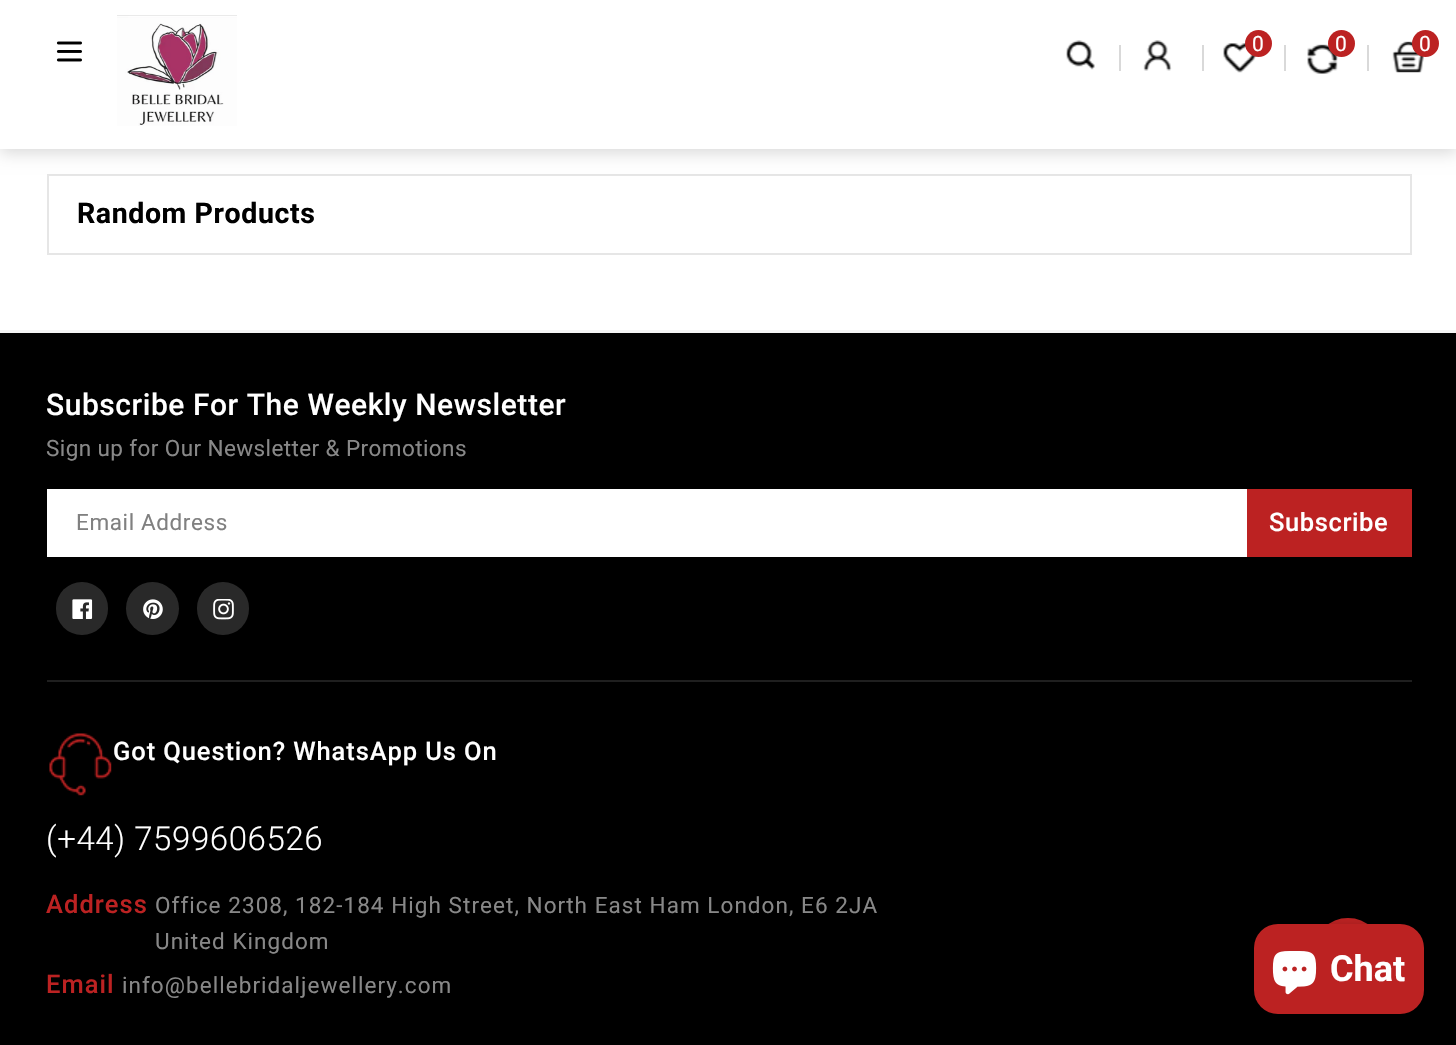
#include "include/core/SkBlurTypes.h"
#include "include/core/SkCanvas.h"
#include "include/core/SkData.h"
#include "include/core/SkFont.h"
#include "include/core/SkFontMgr.h"
#include "include/core/SkImage.h"
#include "include/core/SkMaskFilter.h"
#include "include/core/SkPaint.h"
#include "include/core/SkPathBuilder.h"
#include "include/core/SkTextBlob.h"
#include "include/effects/SkDashPathEffect.h"
#include "include/effects/SkGradientShader.h"
#include "include/utils/SkParsePath.h"

extern sk_sp<SkFontMgr> fontMgr;

void draw(SkCanvas* canvas) {
    SkPaint p;
    p.setAntiAlias(true);
    auto font = [&](const char* family, int weight, float size, bool italic = false) {
        SkFontStyle style(weight, SkFontStyle::kNormal_Width,
            italic ? SkFontStyle::kItalic_Slant : SkFontStyle::kUpright_Slant);
        SkFont result(fontMgr->matchFamilyStyle(family, style), size);
        result.setSubpixel(true);
        return result;
    };
    auto drawTracked = [&](const char* s, float x, float y, const SkFont& font, const SkPaint& ink, float letter, float word) {
        std::vector<SkGlyphID> glyphs(font.countText(s, strlen(s), SkTextEncoding::kUTF8));
        std::vector<float> xs(glyphs.size());
        font.textToGlyphs(s, strlen(s), SkTextEncoding::kUTF8, glyphs);
        font.getXPos(glyphs, xs, x);
        float extra = 0;
        for (size_t i = 0; i < glyphs.size(); i++) {
            xs[i] += extra;
            extra += letter + word * (glyphs[i] == font.unicharToGlyph(' '));
        }
        canvas->drawTextBlob(SkTextBlob::MakeFromPosHGlyphs(glyphs, xs, y, font), 0, 0, ink);
    };
    auto drawPhoto = [&](const char* path, float l, float t, float r, float b) {
        auto image = SkImages::DeferredFromEncodedData(SkData::MakeFromFileName(path));
        canvas->drawImageRect(image, SkRect::MakeLTRB(l, t, r, b), SkSamplingOptions());
    };
    canvas->clear(0xFFFFFFFF);
    p.setStyle(SkPaint::kStroke_Style);
    p.setStrokeWidth(2);
    p.setColor(0xFFE6E6E6);
    canvas->drawRect(SkRect::MakeLTRB(48, 175, 1411, 254), p);
    p.setStyle(SkPaint::kFill_Style);
    p.setColor(0x26000000);
    p.setMaskFilter(SkMaskFilter::MakeBlur(kNormal_SkBlurStyle, 7.5f));
    canvas->drawRect(SkRect::MakeLTRB(0, 5, 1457, 153), p);
    p.setMaskFilter(nullptr);
    p.setColor(0xFFFFFFFF);
    canvas->drawRect(SkRect::MakeLTRB(0, 0, 1456, 149), p);
    drawPhoto("media/1.png", 56, 41, 82, 62);
    drawPhoto("media/2.png", 117, 15, 237, 126);
    drawPhoto("media/3.png", 1066, 40, 1095, 70);
    p.setColor(0xFFD9D9D9);
    canvas->drawRect(SkRect::MakeLTRB(1119, 45, 1121, 71), p);
    drawPhoto("media/4.png", 1143, 40, 1172, 71);
    canvas->drawRect(SkRect::MakeLTRB(1202, 45, 1204, 71), p);
    drawPhoto("media/5.png", 1223, 43, 1256, 73);
    p.setColor(0xFFBC2222);
    canvas->drawCircle(1258.5f, 43.5f, 13.5f, p);
    auto font1 = font("Roboto", 400, 21);
    p.setColor(0xFFFFFFFF);
    drawTracked("0", 1252, 51, font1, p, 0.6f, 0);
    p.setColor(0xFFD9D9D9);
    canvas->drawRect(SkRect::MakeLTRB(1284, 45, 1286, 71), p);
    drawPhoto("media/6.png", 1307, 44, 1338, 74);
    p.setColor(0xFFBC2222);
    canvas->drawCircle(1341.5f, 43.5f, 13.5f, p);
    p.setColor(0xFFFFFFFF);
    drawTracked("0", 1335, 51, font1, p, 0.6f, 0);
    p.setColor(0xFFD9D9D9);
    canvas->drawRect(SkRect::MakeLTRB(1367, 45, 1369, 71), p);
    drawPhoto("media/7.png", 1392, 41, 1424, 73);
    p.setColor(0xFFBC2222);
    canvas->drawCircle(1425.5f, 43.5f, 13.5f, p);
    p.setColor(0xFFFFFFFF);
    canvas->drawString("0", 1419, 51, font1, p);
    auto font2 = font("Roboto", 700, 28.5f);
    p.setColor(0xFF000000);
    drawTracked("Random Products", 77, 223, font2, p, 0.6f, 0);
    {
        const struct { float l, t, r, b; SkColor color; } items[] = {
            {0, 333, 1456, 1045, 0xFF000000},
            {0, 330, 1456, 333, 0xFFF5F5F5},
            {47, 680, 1412, 682, 0xFF1F1F1F},
        };
        for (auto [l, t, r, b, color] : items) {
            p.setColor(color);
            canvas->drawRect(SkRect::MakeLTRB(l, t, r, b), p);
        }
    }
    auto font3 = font("Roboto", 500, 30);
    p.setColor(0xFFFFFFFF);
    drawTracked("Subscribe For The Weekly Newsletter", 46, 415, font3, p, 0.55f, 0);
    auto font4 = font("Roboto", 400, 22.5f);
    p.setColor(0xFF888888);
    drawTracked("Sign up for Our Newsletter & Promotions", 46, 456, font4, p, 0.4f, 0);
    p.setColor(0xFFFFFFFF);
    canvas->drawRect(SkRect::MakeLTRB(47, 489, 1247, 557), p);
    p.setColor(0xFF808080);
    drawTracked("Email Address", 76, 530, font4, p, 0.6f, 0);
    p.setColor(0xFFBC2222);
    canvas->drawRect(SkRect::MakeLTRB(1247, 489, 1412, 557), p);
    auto font5 = font("Roboto", 500, 25.5f);
    p.setColor(0xFFFFFFFF);
    drawTracked("Subscribe", 1269, 531, font5, p, 0.6f, 0);
    p.setColor(0xFF292929);
    canvas->drawRoundRect(SkRect::MakeLTRB(56, 582, 108, 635), 26, 26, p);
    drawPhoto("media/8.png", 72, 599, 93, 619);
    canvas->drawCircle(152.5f, 608.5f, 26.5f, p);
    drawPhoto("media/9.png", 143, 599, 163, 619);
    canvas->drawRoundRect(SkRect::MakeLTRB(197, 582, 249, 635), 26, 26, p);
    drawPhoto("media/10.png", 213, 599, 234, 620);
    drawPhoto("media/11.png", 49, 733, 112, 796);
    p.setColor(0xFFFFFFFF);
    drawTracked("Got Question? WhatsApp Us On", 113, 760, font5, p, 0.9f, 0);
    auto font6 = font("Roboto", 300, 33);
    drawTracked("(+44) 7599606526", 46, 850, font6, p, 0.6f, 0);
    p.setColor(0xFFBC2222);
    drawTracked("Address", 46, 913, font5, p, 1.05f, 0);
    p.setColor(0xFF888888);
    drawTracked("Office 2308, 182-184 High Street, North East Ham London, E6 2JA", 155, 913, font4, p, 1.05f, 0);
    drawTracked("United Kingdom", 155, 949, font4, p, 1.05f, 0);
    p.setColor(0xFFBC2222);
    drawTracked("Email", 46, 993, font5, p, 1.05f, 0);
    p.setColor(0xFF888888);
    drawTracked("info@bellebridaljewellery.com", 122, 993, font4, p, 1.05f, 0);
    p.setColor(0xFFBC2222);
    canvas->drawCircle(1348, 952, 33, p);
    p.setStyle(SkPaint::kStroke_Style);
    canvas->drawCircle(1348, 952, 33, p);
    p.setStyle(SkPaint::kFill_Style);
    p.setColor(0x26000000);
    p.setMaskFilter(SkMaskFilter::MakeBlur(kNormal_SkBlurStyle, 4));
    canvas->drawRoundRect(SkRect::MakeLTRB(1254, 924, 1424, 1014), 24, 24, p);
    p.setMaskFilter(nullptr);
    p.setColor(0xFFBC2222);
    canvas->drawRoundRect(SkRect::MakeLTRB(1254, 924, 1424, 1014), 24, 24, p);
    drawPhoto("media/12.png", 1272, 951, 1317, 995);
    auto font7 = font("Roboto", 700, 36);
    p.setColor(0xFFFFFFFF);
    canvas->drawString("Chat", 1330, 981, font7, p);
}
